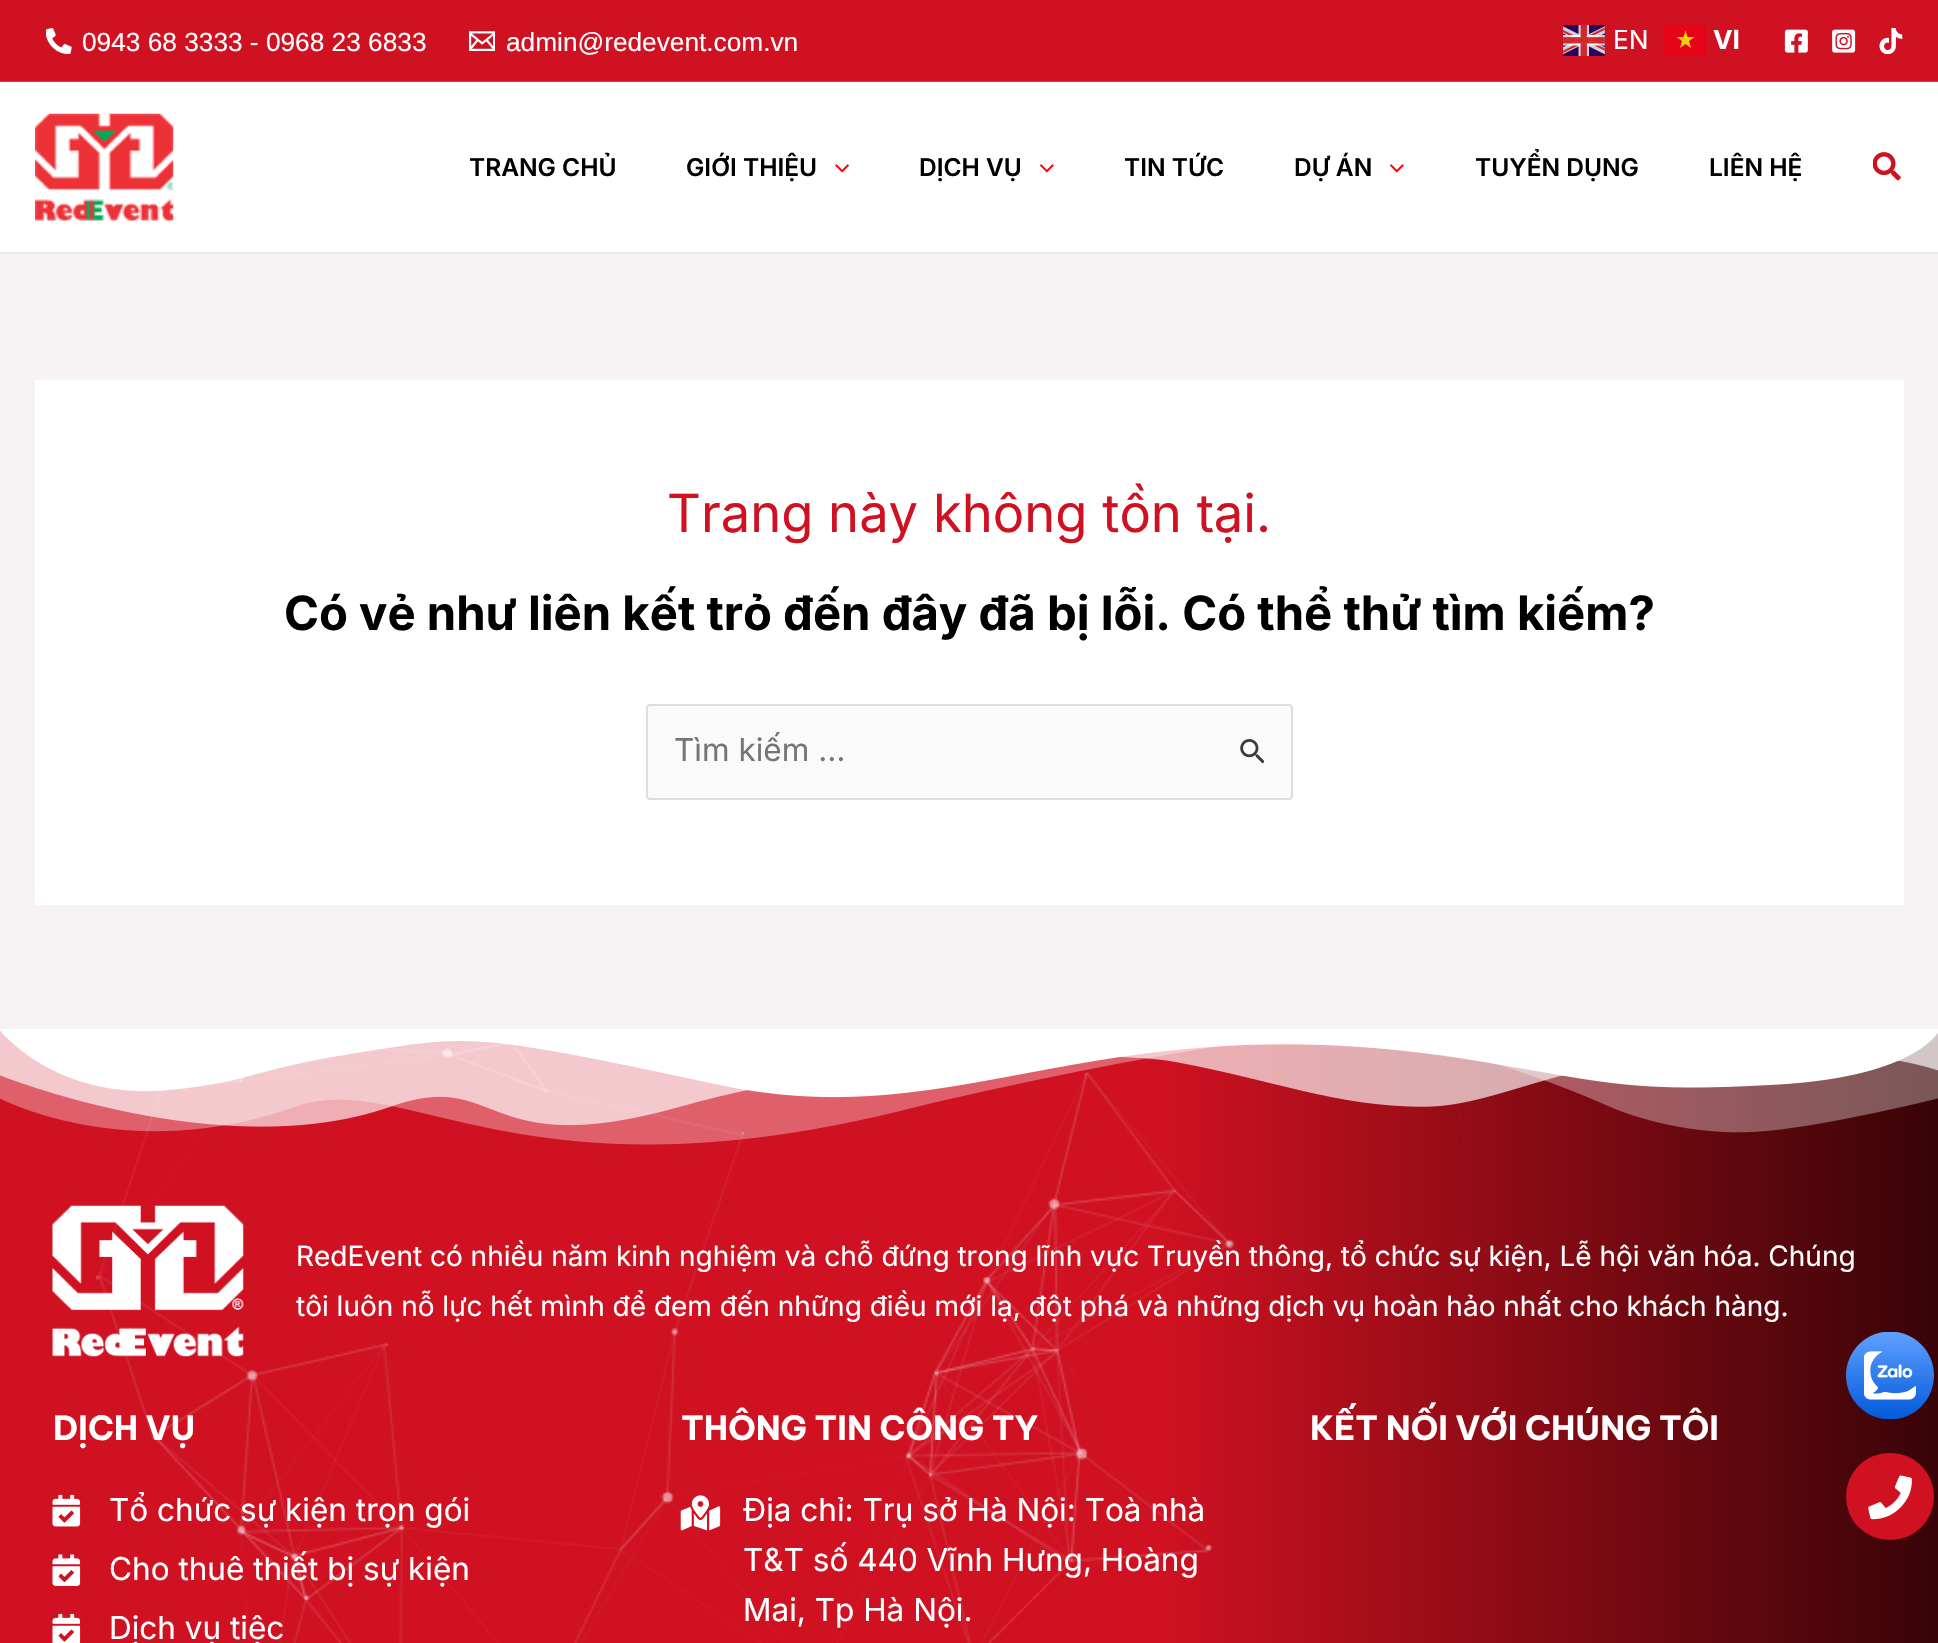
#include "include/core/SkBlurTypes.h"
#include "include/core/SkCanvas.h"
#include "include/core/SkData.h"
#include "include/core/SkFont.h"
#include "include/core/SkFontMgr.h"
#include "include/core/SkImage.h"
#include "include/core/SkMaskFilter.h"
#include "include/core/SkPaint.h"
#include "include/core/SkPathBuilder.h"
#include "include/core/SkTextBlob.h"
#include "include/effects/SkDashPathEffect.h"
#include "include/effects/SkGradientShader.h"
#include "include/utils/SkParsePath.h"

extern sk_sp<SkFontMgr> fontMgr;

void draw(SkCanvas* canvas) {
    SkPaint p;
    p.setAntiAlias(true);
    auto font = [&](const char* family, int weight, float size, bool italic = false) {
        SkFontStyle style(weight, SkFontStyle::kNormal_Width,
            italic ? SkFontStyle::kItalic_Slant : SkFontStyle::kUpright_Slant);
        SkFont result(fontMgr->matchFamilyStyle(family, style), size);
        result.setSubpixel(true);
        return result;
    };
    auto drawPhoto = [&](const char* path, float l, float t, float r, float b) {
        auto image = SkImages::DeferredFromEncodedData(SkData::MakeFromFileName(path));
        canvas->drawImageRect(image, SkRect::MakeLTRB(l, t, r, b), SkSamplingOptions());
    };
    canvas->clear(0xFFF7F3F5);
    p.setColor(0xFFCF1121);
    canvas->drawRect(SkRect::MakeLTRB(0, 0, 1938, 81), p);
    p.setColor(0xFFD43A47);
    canvas->drawRect(SkRect::MakeLTRB(0, 81, 1938, 82), p);
    drawPhoto("media/1.png", 46, 28, 72, 54);
    auto font1 = font("Liberation Sans", 400, 26.25f);
    p.setColor(0xFFFFFFFF);
    canvas->drawString("0943 68 3333 - 0968 23 6833", 82, 51, font1, p);
    drawPhoto("media/2.png", 469, 31, 495, 51);
    canvas->drawString("admin@redevent.com.vn", 506, 51, font1, p);
    drawPhoto("media/3.png", 1563, 25, 1605, 56);
    auto font2 = font("Inter", 400, 26.25f);
    canvas->drawString("EN", 1613, 49, font2, p);
    auto font3 = font("Inter", 700, 26.25f);
    canvas->drawString("VI", 1713, 49, font3, p);
    p.setColor(0xFFE60317);
    canvas->drawRect(SkRect::MakeLTRB(1664, 25, 1706, 56), p);
    p.setColor(0xFFF5CF07);
    canvas->drawPath(SkPathBuilder(SkPathFillType::kEvenOdd).moveTo(1691, 48).lineTo(1685.5f, 44).lineTo(1680, 48).lineTo(1682, 41).lineTo(1676.5f, 37).lineTo(1683.5f, 37).lineTo(1685.5f, 30.5f).lineTo(1687.5f, 37).lineTo(1694.5f, 37).lineTo(1689, 41).close().detach(), p);
    drawPhoto("media/4.png", 1784, 29, 1808, 53);
    drawPhoto("media/5.png", 1832, 29, 1856, 53);
    drawPhoto("media/6.png", 1879, 28, 1903, 54);
    p.setColor(0xFFFFFFFF);
    canvas->drawRect(SkRect::MakeLTRB(0, 82, 1938, 252), p);
    p.setColor(0xFFEAEAEA);
    canvas->drawRect(SkRect::MakeLTRB(0, 252, 1938, 254), p);
    drawPhoto("media/7.png", 35, 113, 174, 221);
    auto font4 = font("Inter", 600, 24.5f);
    p.setColor(0xFF000000);
    canvas->drawString("TRANG CHỦ", 469, 176, font4, p);
    canvas->drawString("GIỚI THIỆU", 686, 176, font4, p);
    drawPhoto("media/8.png", 835, 164, 849, 173);
    canvas->drawString("DỊCH VỤ", 919, 176, font4, p);
    drawPhoto("media/9.png", 1040, 164, 1054, 173);
    canvas->drawString("TIN TỨC", 1124, 176, font4, p);
    canvas->drawString("DỰ ÁN", 1294, 176, font4, p);
    drawPhoto("media/9.png", 1390, 164, 1404, 173);
    canvas->drawString("TUYỂN DỤNG", 1475, 176, font4, p);
    canvas->drawString("LIÊN HỆ", 1709, 176, font4, p);
    drawPhoto("media/10.png", 1873, 152, 1901, 181);
    p.setColor(0xFFFFFFFF);
    canvas->drawRect(SkRect::MakeLTRB(35, 380, 1904, 905), p);
    auto font5 = font("Inter", 400, 52.5f);
    p.setColor(0xFFCF1121);
    canvas->drawString("Trang này không tồn tại.", 667, 532, font5, p);
    auto font6 = font("Inter", 700, 47.25f);
    p.setColor(0xFF000000);
    canvas->drawString("Có vẻ như liên kết trỏ đến đây đã bị lỗi. Có thể thử tìm kiếm?", 284, 630, font6, p);
    p.setColor(0xFFFAFAFA);
    canvas->drawRoundRect(SkRect::MakeLTRB(647, 705, 1292, 799), 3, 3, p);
    p.setStyle(SkPaint::kStroke_Style);
    p.setStrokeWidth(2);
    p.setColor(0xFFDDDDDD);
    canvas->drawRoundRect(SkRect::MakeLTRB(647, 705, 1292, 799), 3, 3, p);
    auto font7 = font("Inter", 400, 31.5f);
    p.setStyle(SkPaint::kFill_Style);
    p.setColor(0xFF757575);
    canvas->drawString("Tìm kiếm …", 674, 761, font7, p);
    drawPhoto("media/11.png", 1240, 739, 1264, 764);
    {
        const SkColor colors[] = {0xFFCF1121, 0xFF380407};
        const float stops[] = {0.6f, 1};
        const SkPoint ends[] = {{0, 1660}, {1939, 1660}};
        p.setShader(SkGradientShader::MakeLinear(ends, colors, stops, 2, SkTileMode::kClamp));
        p.setAlpha(255);
    }
    canvas->drawRect(SkRect::MakeLTRB(0, 1031, 1938, 1643), p);
    drawPhoto("media/13.png", 0, 1029, 1938, 1145);
    drawPhoto("media/12.png", 96, 1044, 1465, 1643);
    drawPhoto("media/14.png", 52, 1205, 244, 1357);
    auto font8 = font("Inter", 400, 28);
    p.setShader(nullptr);
    p.setColor(0xFFFFFFFF);
    canvas->drawString("RedEvent có nhiều năm kinh nghiệm và chỗ đứng trong lĩnh vực Truyền thông, tổ chức sự kiện, Lễ hội văn hóa. Chúng", 296, 1266, font8, p);
    canvas->drawString("tôi luôn nỗ lực hết mình để đem đến những điều mới lạ, đột phá và những dịch vụ hoàn hảo nhất cho khách hàng.", 296, 1316, font8, p);
    auto font9 = font("Be Vietnam Pro", 700, 33.25f);
    canvas->drawString("DỊCH VỤ", 53, 1440, font9, p);
    drawPhoto("media/15.png", 52, 1494, 81, 1527);
    canvas->drawString("Tổ chức sự kiện trọn gói", 109, 1521, font7, p);
    drawPhoto("media/16.png", 52, 1554, 81, 1586);
    canvas->drawString("Cho thuê thiết bị sự kiện", 109, 1580, font7, p);
    drawPhoto("media/17.png", 52, 1613, 81, 1643);
    canvas->drawString("Dịch vụ tiệc", 109, 1639, font7, p);
    canvas->drawString("THÔNG TIN CÔNG TY", 681, 1440, font9, p);
    drawPhoto("media/18.png", 680, 1495, 721, 1531);
    {
        const struct { const char* s; float x, y; } items[] = {
            {"Địa chỉ: Trụ sở Hà Nội: Toà nhà", 743, 1521},
            {"T&T số 440 Vĩnh Hưng, Hoàng", 743, 1571},
            {"Mai, Tp Hà Nội.", 743, 1621},
        };
        for (auto [s, x, y] : items) {
            canvas->drawString(s, x, y, font7, p);
        }
    }
    canvas->drawString("KẾT NỐI VỚI CHÚNG TÔI", 1310, 1440, font9, p);
    drawPhoto("media/19.png", 1846, 1332, 1934, 1419);
    p.setColor(0xFFCF1121);
    canvas->drawRoundRect(SkRect::MakeLTRB(1846, 1453, 1934, 1540), 43.5f, 43.5f, p);
    drawPhoto("media/20.png", 1868, 1475, 1912, 1520);
}
